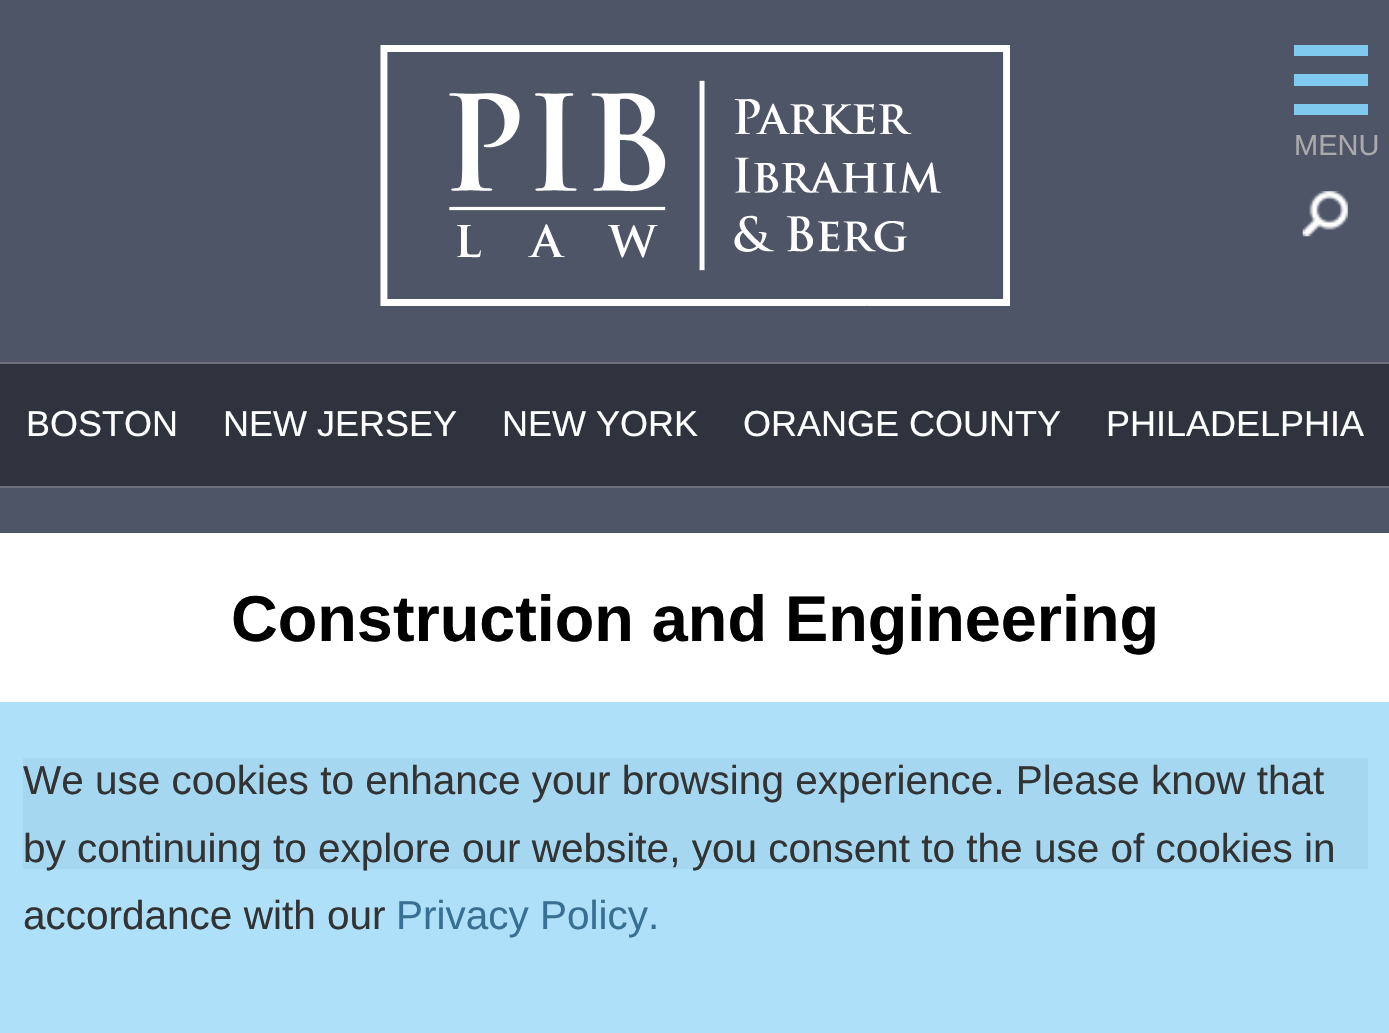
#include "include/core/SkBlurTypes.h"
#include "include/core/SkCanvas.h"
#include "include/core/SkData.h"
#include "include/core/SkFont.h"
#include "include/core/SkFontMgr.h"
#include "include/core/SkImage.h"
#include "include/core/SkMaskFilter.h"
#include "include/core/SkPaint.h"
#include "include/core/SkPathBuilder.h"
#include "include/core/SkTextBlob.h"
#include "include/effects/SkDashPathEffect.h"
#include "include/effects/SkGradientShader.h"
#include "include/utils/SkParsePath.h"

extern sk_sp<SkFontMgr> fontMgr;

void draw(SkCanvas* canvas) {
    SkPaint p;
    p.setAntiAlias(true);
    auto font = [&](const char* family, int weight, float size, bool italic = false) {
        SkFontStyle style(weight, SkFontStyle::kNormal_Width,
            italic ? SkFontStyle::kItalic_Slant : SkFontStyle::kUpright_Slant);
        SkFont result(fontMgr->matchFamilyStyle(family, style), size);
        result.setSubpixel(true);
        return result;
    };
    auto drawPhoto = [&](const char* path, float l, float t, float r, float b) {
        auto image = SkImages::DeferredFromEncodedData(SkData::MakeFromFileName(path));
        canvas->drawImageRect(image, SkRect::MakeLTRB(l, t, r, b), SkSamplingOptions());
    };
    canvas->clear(0xFFFFFFFF);
    {
        const struct { float l, t, r, b; SkColor color; } items[] = {
            {0, 702, 1389, 1033, 0xFFAEE0F9},
            {0, 0, 1389, 533, 0xFF4D5567},
            {1294, 104, 1368, 115, 0xFF81CAEF},
            {1294, 74, 1368, 86, 0xFF81CAEF},
            {1294, 45, 1368, 56, 0xFF81CAEF},
        };
        for (auto [l, t, r, b, color] : items) {
            p.setColor(color);
            canvas->drawRect(SkRect::MakeLTRB(l, t, r, b), p);
        }
    }
    auto font1 = font("Liberation Sans", 400, 29);
    p.setColor(0xFFAAAAAA);
    canvas->drawString("MENU", 1294, 155, font1, p);
    drawPhoto("media/1.png", 1302, 191, 1348, 237);
    drawPhoto("media/2.png", 380, 45, 1010, 306);
    {
        const struct { float l, t, r, b; SkColor color; } items[] = {
            {0, 364, 1389, 486, 0xFF2E333E},
            {0, 362, 1389, 364, 0xFF6D7078},
            {0, 486, 1389, 488, 0xFF6D7078},
        };
        for (auto [l, t, r, b, color] : items) {
            p.setColor(color);
            canvas->drawRect(SkRect::MakeLTRB(l, t, r, b), p);
        }
    }
    auto font2 = font("Liberation Sans", 400, 36);
    p.setColor(0xFFFFFFFF);
    {
        const struct { const char* s; float x, y; } items[] = {
            {"BOSTON", 26, 436},
            {"NEW JERSEY", 223, 436},
            {"NEW YORK", 502, 436},
            {"ORANGE COUNTY", 743, 436},
            {"PHILADELPHIA", 1106, 436},
        };
        for (auto [s, x, y] : items) {
            canvas->drawString(s, x, y, font2, p);
        }
    }
    auto font3 = font("Liberation Sans", 700, 64.75f);
    p.setColor(0xFF000000);
    canvas->drawString("Construction and Engineering", 231, 641, font3, p);
    p.setColor(0xFFA5D7F1);
    canvas->drawRect(SkRect::MakeLTRB(23, 758, 1368, 869), p);
    auto font4 = font("Liberation Sans", 400, 40.5f);
    p.setColor(0xFF333333);
    {
        const struct { const char* s; float x, y; } items[] = {
            {"We use cookies to enhance your browsing experience. Please know that", 23, 794},
            {"by continuing to explore our website, you consent to the use of cookies in", 23, 862},
            {"accordance with our", 23, 929},
        };
        for (auto [s, x, y] : items) {
            canvas->drawString(s, x, y, font4, p);
        }
    }
    p.setColor(0xFF387093);
    canvas->drawString("Privacy Policy.", 396, 929, font4, p);
}
